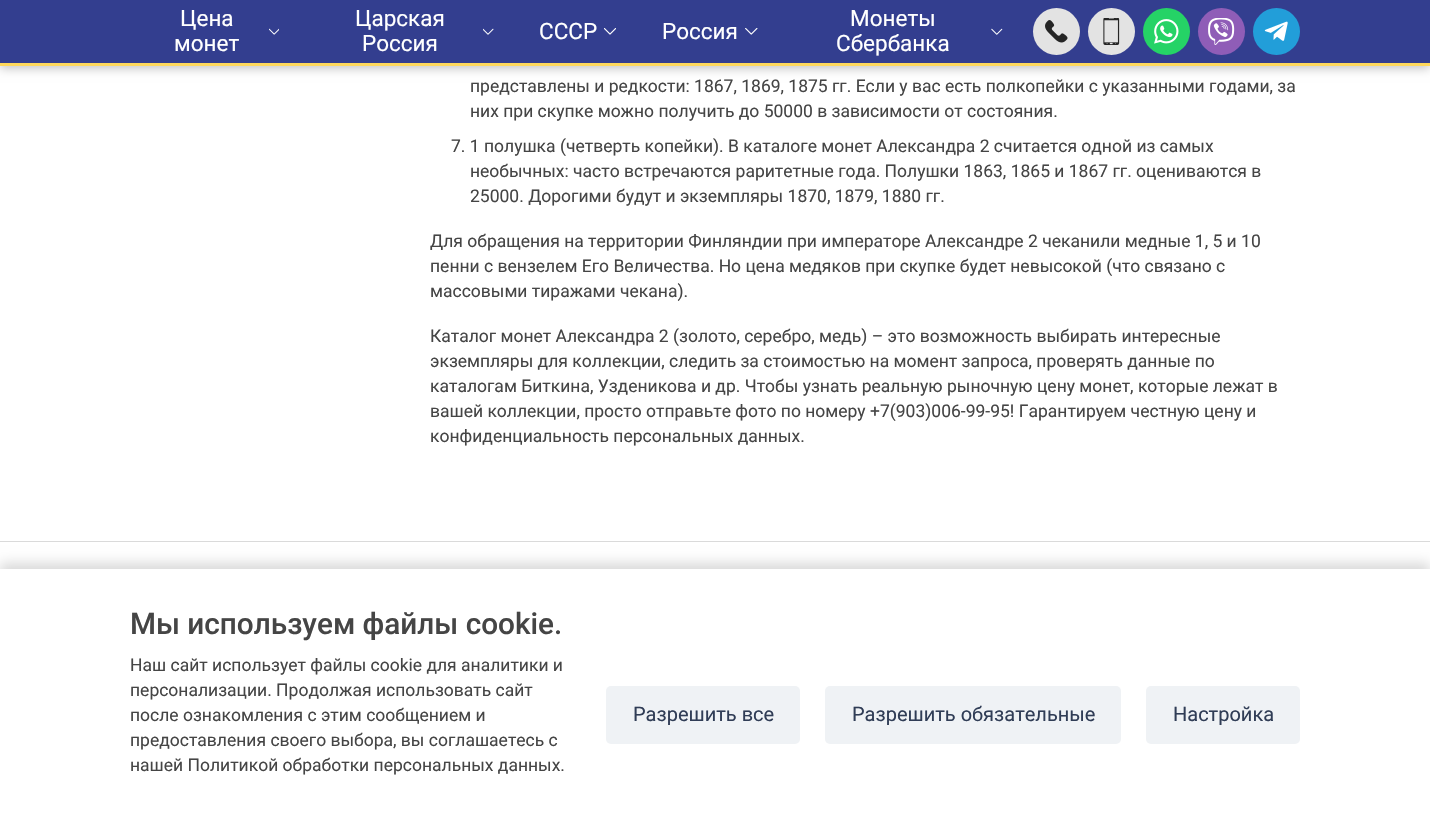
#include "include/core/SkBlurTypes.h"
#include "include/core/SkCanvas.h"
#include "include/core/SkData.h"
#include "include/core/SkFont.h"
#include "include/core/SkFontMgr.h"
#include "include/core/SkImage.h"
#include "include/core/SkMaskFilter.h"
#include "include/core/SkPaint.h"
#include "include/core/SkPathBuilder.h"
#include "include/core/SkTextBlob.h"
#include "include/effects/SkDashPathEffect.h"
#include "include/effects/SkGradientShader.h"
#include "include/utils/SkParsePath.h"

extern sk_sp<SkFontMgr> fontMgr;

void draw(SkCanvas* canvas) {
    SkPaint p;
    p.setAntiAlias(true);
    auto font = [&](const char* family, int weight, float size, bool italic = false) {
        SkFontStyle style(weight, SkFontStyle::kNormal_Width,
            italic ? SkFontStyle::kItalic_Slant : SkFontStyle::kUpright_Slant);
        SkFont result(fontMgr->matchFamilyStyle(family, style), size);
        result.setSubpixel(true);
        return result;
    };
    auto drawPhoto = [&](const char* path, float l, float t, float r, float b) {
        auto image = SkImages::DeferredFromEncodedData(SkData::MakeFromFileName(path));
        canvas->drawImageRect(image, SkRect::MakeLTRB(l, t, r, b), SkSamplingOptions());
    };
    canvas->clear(0xFFFFFFFF);
    p.setColor(0x40000000);
    p.setMaskFilter(SkMaskFilter::MakeBlur(kNormal_SkBlurStyle, 5));
    canvas->drawRect(SkRect::MakeLTRB(0, 3, 1430, 68), p);
    p.setMaskFilter(nullptr);
    p.setColor(0xFF333E8F);
    canvas->drawRect(SkRect::MakeLTRB(0, 0, 1430, 63), p);
    p.setColor(0xFFFFD85C);
    canvas->drawRect(SkRect::MakeLTRB(0, 63, 1430, 66), p);
    auto font1 = font("Roboto", 400, 22.5f);
    p.setColor(0xFFFFFFFF);
    canvas->drawString("Цена", 180, 26, font1, p);
    drawPhoto("media/1.png", 269, 28, 279, 35);
    canvas->drawString("монет", 174, 51, font1, p);
    canvas->drawString("Царская", 355, 26, font1, p);
    drawPhoto("media/2.png", 483, 28, 494, 35);
    canvas->drawString("Россия", 362, 51, font1, p);
    canvas->drawString("CCCР", 539, 39, font1, p);
    drawPhoto("media/3.png", 604, 28, 616, 35);
    canvas->drawString("Россия", 662, 39, font1, p);
    drawPhoto("media/4.png", 745, 28, 758, 35);
    canvas->drawString("Монеты", 850, 26, font1, p);
    drawPhoto("media/5.png", 991, 28, 1003, 35);
    canvas->drawString("Сбербанка", 836, 51, font1, p);
    p.setColor(0xFFE3E3E3);
    canvas->drawCircle(1056.5f, 31.5f, 23.5f, p);
    drawPhoto("media/6.png", 1045, 20, 1068, 43);
    canvas->drawCircle(1111.5f, 31.5f, 23.5f, p);
    drawPhoto("media/7.png", 1103, 18, 1120, 45);
    p.setColor(0xFF25D366);
    canvas->drawCircle(1166.5f, 31.5f, 23.5f, p);
    drawPhoto("media/8.png", 1154, 19, 1179, 44);
    p.setColor(0xFF8F5DB7);
    canvas->drawCircle(1221.5f, 31.5f, 23.5f, p);
    drawPhoto("media/9.png", 1208, 18, 1235, 45);
    p.setColor(0xFF229ED9);
    canvas->drawCircle(1276.5f, 31.5f, 23.5f, p);
    drawPhoto("media/10.png", 1264, 21, 1288, 41);
    auto font2 = font("Roboto", 400, 17.5f);
    p.setColor(0xFF454545);
    {
        const struct { const char* s; float x, y; } items[] = {
            {"представлены и редкости: 1867, 1869, 1875 гг. Если у вас есть полкопейки с указанными годами, за", 470, 92},
            {"них при скупке можно получить до 50000 в зависимости от состояния.", 470, 117},
            {"7. 1 полушка (четверть копейки). В каталоге монет Александра 2 считается одной из самых", 451, 152},
            {"необычных: часто встречаются раритетные года. Полушки 1863, 1865 и 1867 гг. оцениваются в", 470, 177},
            {"25000. Дорогими будут и экземпляры 1870, 1879, 1880 гг.", 470, 202},
            {"Для обращения на территории Финляндии при императоре Александре 2 чеканили медные 1, 5 и 10", 430, 247},
            {"пенни с вензелем Его Величества. Но цена медяков при скупке будет невысокой (что связано с", 430, 272},
            {"массовыми тиражами чекана).", 430, 297},
            {"Каталог монет Александра 2 (золото, серебро, медь) – это возможность выбирать интересные", 430, 342},
            {"экземпляры для коллекции, следить за стоимостью на момент запроса, проверять данные по", 430, 367},
            {"каталогам Биткина, Узденикова и др. Чтобы узнать реальную рыночную цену монет, которые лежат в", 430, 392},
            {"вашей коллекции, просто отправьте фото по номеру +7(903)006-99-95! Гарантируем честную цену и", 430, 417},
            {"конфиденциальность персональных данных.", 430, 442},
        };
        for (auto [s, x, y] : items) {
            canvas->drawString(s, x, y, font2, p);
        }
    }
    p.setColor(0xFFDADADA);
    canvas->drawRect(SkRect::MakeLTRB(0, 541, 1430, 542), p);
    p.setColor(0x26000000);
    p.setMaskFilter(SkMaskFilter::MakeBlur(kNormal_SkBlurStyle, 6));
    canvas->drawRect(SkRect::MakeLTRB(0, 563, 1430, 809), p);
    p.setMaskFilter(nullptr);
    p.setColor(0xFFFFFFFF);
    canvas->drawRect(SkRect::MakeLTRB(0, 569, 1430, 815), p);
    auto font3 = font("Roboto", 500, 29.75f);
    p.setColor(0xFF454545);
    canvas->drawString("Мы используем файлы cookie.", 130, 634, font3, p);
    {
        const struct { const char* s; float x, y; } items[] = {
            {"Наш сайт использует файлы cookie для аналитики и", 130, 671},
            {"персонализации. Продолжая использовать сайт", 130, 696},
            {"после ознакомления с этим сообщением и", 130, 721},
            {"предоставления своего выбора, вы соглашаетесь с", 130, 746},
            {"нашей Политикой обработки персональных данных.", 130, 771},
        };
        for (auto [s, x, y] : items) {
            canvas->drawString(s, x, y, font2, p);
        }
    }
    p.setColor(0xFFEFF2F5);
    canvas->drawRoundRect(SkRect::MakeLTRB(606, 686, 800, 744), 5, 5, p);
    auto font4 = font("Roboto", 400, 20);
    p.setColor(0xFF303D56);
    canvas->drawString("Разрешить все", 633, 721, font4, p);
    p.setColor(0xFFEFF2F5);
    canvas->drawRoundRect(SkRect::MakeLTRB(825, 686, 1121, 744), 5, 5, p);
    p.setColor(0xFF303D56);
    canvas->drawString("Разрешить обязательные", 852, 721, font4, p);
    p.setColor(0xFFEFF2F5);
    canvas->drawRoundRect(SkRect::MakeLTRB(1146, 686, 1300, 744), 5, 5, p);
    p.setColor(0xFF303D56);
    canvas->drawString("Настройка", 1173, 721, font4, p);
}
